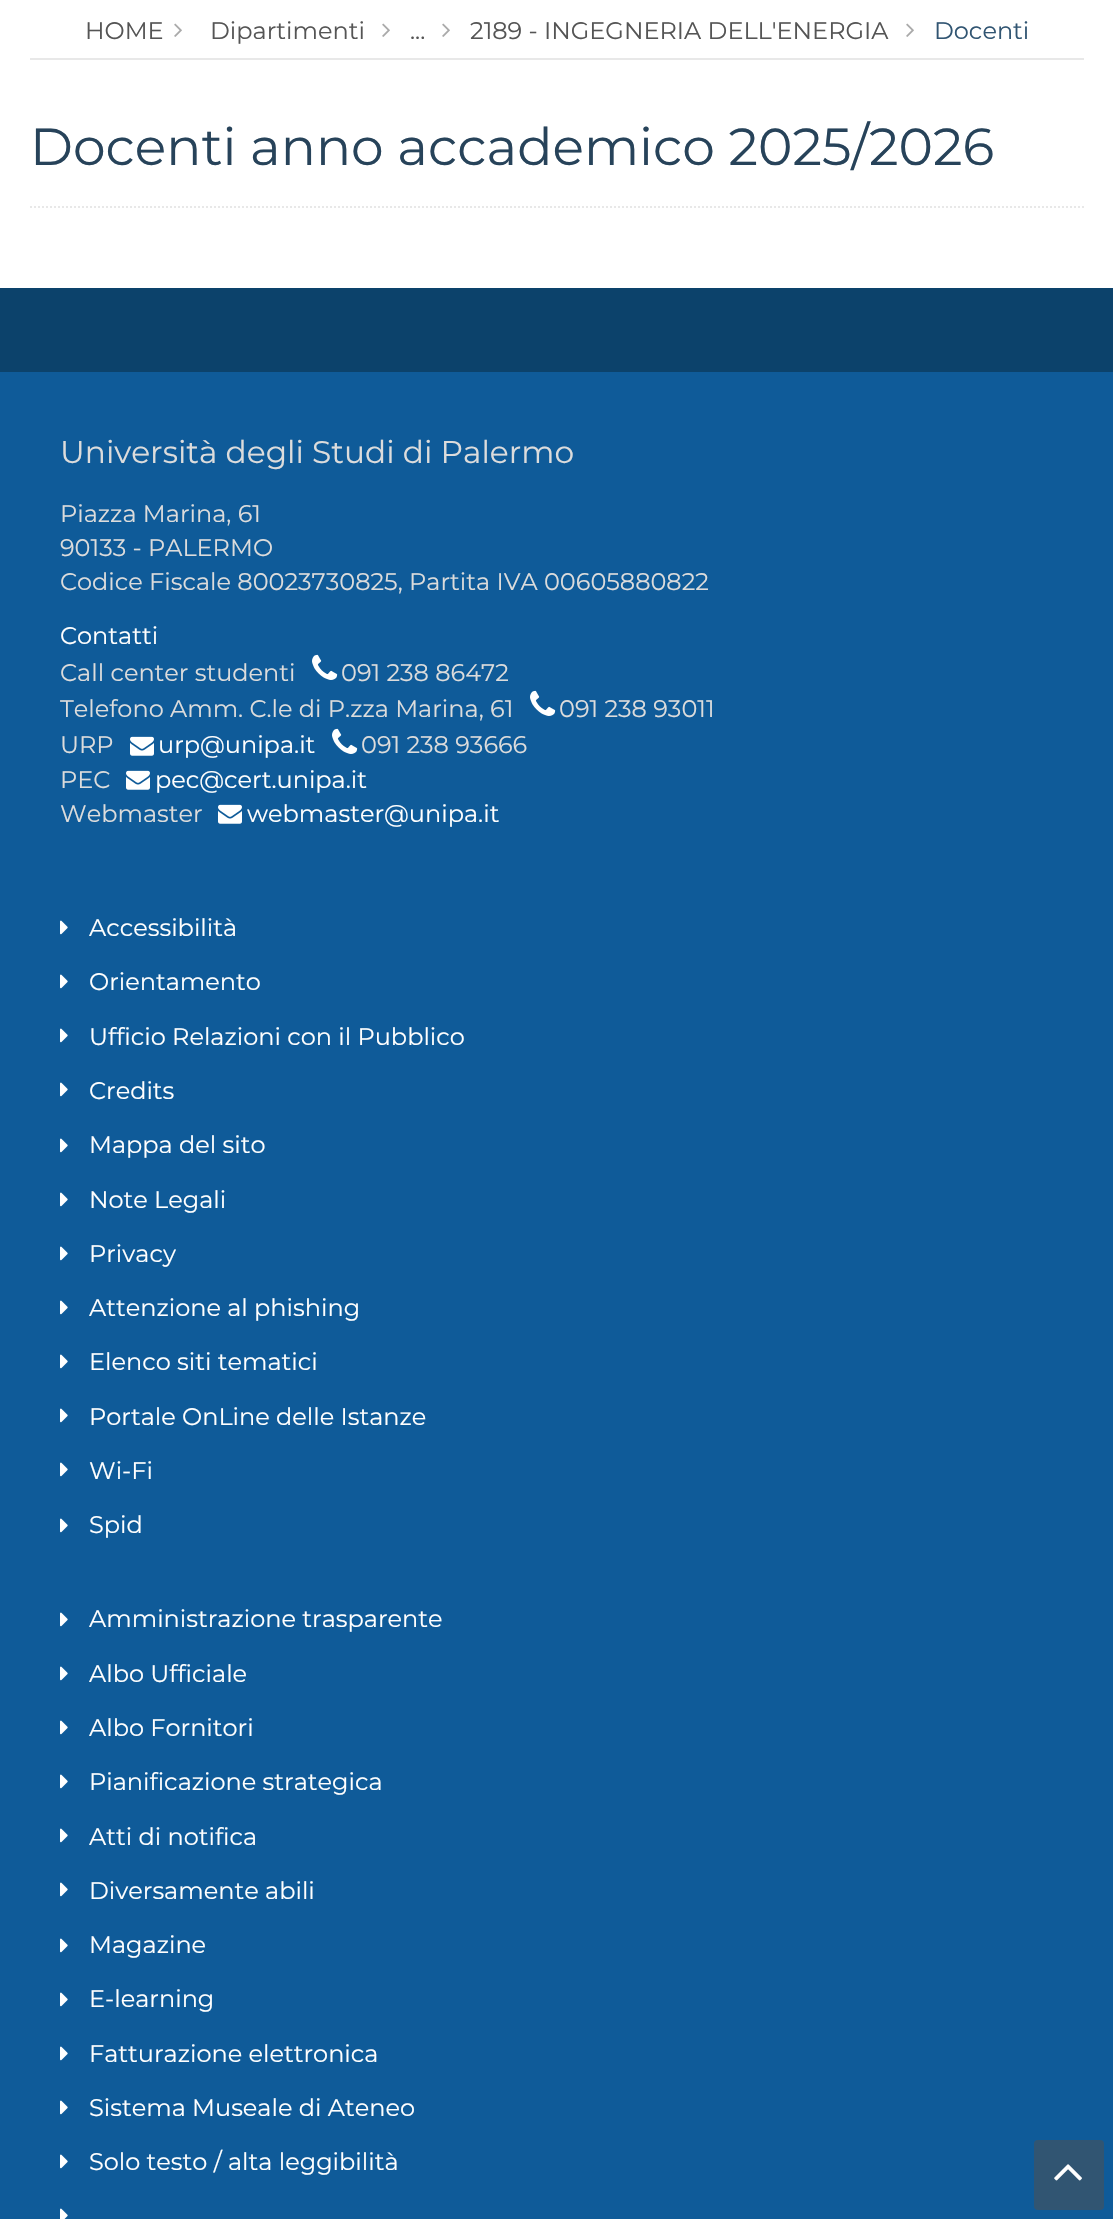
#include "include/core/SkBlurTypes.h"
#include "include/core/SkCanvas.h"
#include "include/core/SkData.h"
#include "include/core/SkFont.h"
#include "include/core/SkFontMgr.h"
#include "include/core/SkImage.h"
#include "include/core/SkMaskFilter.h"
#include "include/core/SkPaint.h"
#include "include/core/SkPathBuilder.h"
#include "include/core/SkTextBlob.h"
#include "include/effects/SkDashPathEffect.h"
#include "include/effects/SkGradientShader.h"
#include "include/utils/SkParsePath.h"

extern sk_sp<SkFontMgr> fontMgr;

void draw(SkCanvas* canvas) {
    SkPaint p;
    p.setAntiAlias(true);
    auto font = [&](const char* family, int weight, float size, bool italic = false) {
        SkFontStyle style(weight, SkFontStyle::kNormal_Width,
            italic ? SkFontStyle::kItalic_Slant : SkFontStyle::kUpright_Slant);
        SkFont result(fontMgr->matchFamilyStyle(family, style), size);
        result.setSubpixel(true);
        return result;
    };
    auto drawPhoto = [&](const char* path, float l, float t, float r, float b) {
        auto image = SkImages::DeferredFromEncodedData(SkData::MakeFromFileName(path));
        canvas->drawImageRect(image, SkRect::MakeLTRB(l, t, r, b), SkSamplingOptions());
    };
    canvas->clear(0xFFFFFFFF);
    p.setColor(0xFFE8E8E8);
    canvas->drawRect(SkRect::MakeLTRB(30, 58, 1084, 60), p);
    auto font1 = font("Montserrat", 400, 24);
    p.setColor(0xFF555555);
    canvas->drawString("HOME", 85, 39, font1, p);
    drawPhoto("media/1.png", 174, 23, 182, 37);
    canvas->drawString("Dipartimenti", 210, 39, font1, p);
    drawPhoto("media/1.png", 382, 23, 390, 37);
    drawPhoto("media/1.png", 442, 23, 450, 37);
    canvas->drawString("...", 410, 39, font1, p);
    canvas->drawString("2189 - INGEGNERIA DELL'ENERGIA", 470, 39, font1, p);
    drawPhoto("media/1.png", 906, 23, 914, 37);
    p.setColor(0xFF315572);
    canvas->drawString("Docenti", 934, 39, font1, p);
    p.setStyle(SkPaint::kStroke_Style);
    p.setStrokeWidth(2);
    p.setColor(0xFFE8E8E8);
    p.setPathEffect(SkDashPathEffect::Make({{2, 2}}, 0));
    canvas->drawPath(SkPathBuilder().moveTo(30, 207).lineTo(1084, 207).detach(), p);
    p.setPathEffect(nullptr);
    auto font2 = font("Montserrat", 400, 52);
    p.setStyle(SkPaint::kFill_Style);
    p.setColor(0xFF27435A);
    canvas->drawString("Docenti anno accademico 2025/2026", 30, 165, font2, p);
    p.setColor(0xFF0F5B99);
    canvas->drawRect(SkRect::MakeLTRB(0, 372, 1113, 2219), p);
    p.setColor(0xFF0C426B);
    canvas->drawRect(SkRect::MakeLTRB(0, 288, 1113, 372), p);
    auto font3 = font("Montserrat", 400, 31.25f);
    p.setColor(0xFFDCDCDC);
    canvas->drawString("Università degli Studi di Palermo", 60, 463, font3, p);
    {
        const struct { const char* s; float x, y; } items[] = {
            {"Piazza Marina, 61", 60, 522},
            {"90133 - PALERMO", 60, 556},
            {"Codice Fiscale 80023730825, Partita IVA 00605880822", 60, 590},
        };
        for (auto [s, x, y] : items) {
            canvas->drawString(s, x, y, font1, p);
        }
    }
    p.setColor(0xFFFFFFFF);
    canvas->drawString("Contatti", 60, 644, font1, p);
    p.setColor(0xFFDCDCDC);
    canvas->drawString("Call center studenti", 60, 681, font1, p);
    drawPhoto("media/2.png", 312, 654, 338, 680);
    canvas->drawString("091 238 86472", 341, 681, font1, p);
    canvas->drawString("Telefono Amm. C.le di P.zza Marina, 61", 60, 717, font1, p);
    drawPhoto("media/2.png", 530, 690, 556, 716);
    canvas->drawString("091 238 93011", 559, 717, font1, p);
    canvas->drawString("URP", 60, 753, font1, p);
    drawPhoto("media/3.png", 130, 736, 154, 756);
    p.setColor(0xFFFFFFFF);
    canvas->drawString("urp@unipa.it", 158, 753, font1, p);
    drawPhoto("media/2.png", 332, 728, 358, 754);
    p.setColor(0xFFDCDCDC);
    canvas->drawString("091 238 93666", 361, 753, font1, p);
    canvas->drawString("PEC", 60, 788, font1, p);
    drawPhoto("media/3.png", 126, 770, 150, 790);
    p.setColor(0xFFFFFFFF);
    canvas->drawString("pec@cert.unipa.it", 155, 788, font1, p);
    p.setColor(0xFFDCDCDC);
    canvas->drawString("Webmaster", 60, 822, font1, p);
    drawPhoto("media/3.png", 218, 804, 242, 824);
    p.setColor(0xFFFFFFFF);
    canvas->drawString("webmaster@unipa.it", 247, 822, font1, p);
    drawPhoto("media/4.png", 60, 920, 68, 935);
    canvas->drawString("Accessibilità", 89, 936, font1, p);
    drawPhoto("media/4.png", 60, 974, 68, 989);
    canvas->drawString("Orientamento", 89, 990, font1, p);
    drawPhoto("media/4.png", 60, 1028, 68, 1043);
    canvas->drawString("Ufficio Relazioni con il Pubblico", 89, 1045, font1, p);
    drawPhoto("media/4.png", 60, 1082, 68, 1097);
    canvas->drawString("Credits", 89, 1099, font1, p);
    drawPhoto("media/4.png", 60, 1138, 68, 1153);
    canvas->drawString("Mappa del sito", 89, 1153, font1, p);
    drawPhoto("media/4.png", 60, 1192, 68, 1207);
    canvas->drawString("Note Legali", 89, 1208, font1, p);
    drawPhoto("media/4.png", 60, 1246, 68, 1261);
    canvas->drawString("Privacy", 89, 1262, font1, p);
    drawPhoto("media/4.png", 60, 1300, 68, 1315);
    canvas->drawString("Attenzione al phishing", 89, 1316, font1, p);
    drawPhoto("media/4.png", 60, 1354, 68, 1369);
    canvas->drawString("Elenco siti tematici", 89, 1370, font1, p);
    drawPhoto("media/4.png", 60, 1408, 68, 1423);
    canvas->drawString("Portale OnLine delle Istanze", 89, 1425, font1, p);
    drawPhoto("media/4.png", 60, 1462, 68, 1477);
    canvas->drawString("Wi-Fi", 89, 1479, font1, p);
    drawPhoto("media/4.png", 60, 1518, 68, 1533);
    canvas->drawString("Spid", 89, 1533, font1, p);
    drawPhoto("media/4.png", 60, 1612, 68, 1627);
    canvas->drawString("Amministrazione trasparente", 89, 1627, font1, p);
    drawPhoto("media/4.png", 60, 1666, 68, 1681);
    canvas->drawString("Albo Ufficiale", 89, 1682, font1, p);
    drawPhoto("media/4.png", 60, 1720, 68, 1735);
    canvas->drawString("Albo Fornitori", 89, 1736, font1, p);
    drawPhoto("media/4.png", 60, 1774, 68, 1789);
    canvas->drawString("Pianificazione strategica", 89, 1790, font1, p);
    drawPhoto("media/4.png", 60, 1828, 68, 1843);
    canvas->drawString("Atti di notifica", 89, 1845, font1, p);
    drawPhoto("media/4.png", 60, 1882, 68, 1897);
    canvas->drawString("Diversamente abili", 89, 1899, font1, p);
    drawPhoto("media/4.png", 60, 1938, 68, 1953);
    canvas->drawString("Magazine", 89, 1953, font1, p);
    drawPhoto("media/4.png", 60, 1992, 68, 2007);
    canvas->drawString("E-learning", 89, 2007, font1, p);
    drawPhoto("media/4.png", 60, 2046, 68, 2061);
    canvas->drawString("Fatturazione elettronica", 89, 2062, font1, p);
    drawPhoto("media/4.png", 60, 2100, 68, 2115);
    canvas->drawString("Sistema Museale di Ateneo", 89, 2116, font1, p);
    drawPhoto("media/4.png", 60, 2154, 68, 2169);
    canvas->drawString("Solo testo / alta leggibilità", 89, 2170, font1, p);
    drawPhoto("media/5.png", 60, 2208, 68, 2219);
    p.setColor(0xFF315572);
    canvas->drawRoundRect(SkRect::MakeLTRB(1034, 2140, 1104, 2210), 4, 4, p);
    drawPhoto("media/6.png", 1054, 2164, 1082, 2181);
}
